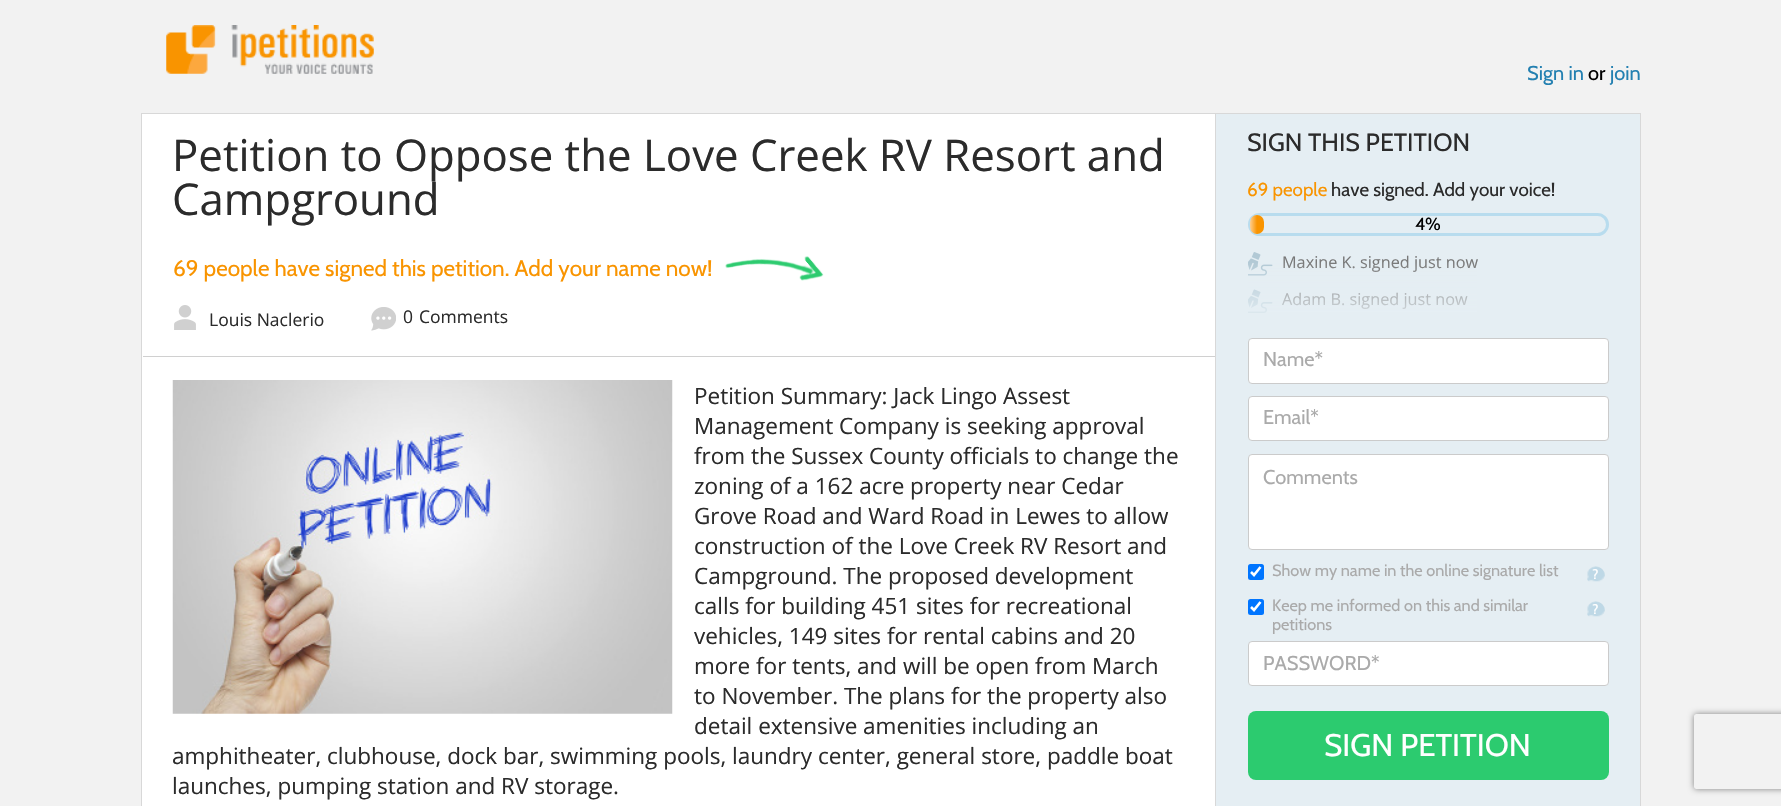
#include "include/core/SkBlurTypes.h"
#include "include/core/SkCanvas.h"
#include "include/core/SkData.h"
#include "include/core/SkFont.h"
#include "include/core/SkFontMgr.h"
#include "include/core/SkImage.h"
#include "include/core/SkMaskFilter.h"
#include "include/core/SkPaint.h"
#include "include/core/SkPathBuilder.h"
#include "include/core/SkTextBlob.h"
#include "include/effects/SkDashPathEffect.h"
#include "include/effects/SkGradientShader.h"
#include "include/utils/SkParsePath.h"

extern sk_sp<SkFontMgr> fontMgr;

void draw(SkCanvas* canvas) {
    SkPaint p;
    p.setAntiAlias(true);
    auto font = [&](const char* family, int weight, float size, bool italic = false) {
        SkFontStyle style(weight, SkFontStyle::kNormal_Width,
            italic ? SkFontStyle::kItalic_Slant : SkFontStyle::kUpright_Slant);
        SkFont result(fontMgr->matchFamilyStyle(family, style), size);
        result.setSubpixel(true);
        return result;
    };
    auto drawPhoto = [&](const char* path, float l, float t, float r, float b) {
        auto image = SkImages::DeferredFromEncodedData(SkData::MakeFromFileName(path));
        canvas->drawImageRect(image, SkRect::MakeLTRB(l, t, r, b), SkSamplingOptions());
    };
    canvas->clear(0xFFF2F2F2);
    drawPhoto("media/1.png", 166, 25, 374, 74);
    auto font1 = font("Cabin", 400, 20);
    p.setColor(0xFF2380B1);
    canvas->drawString("Sign in", 1527, 80, font1, p);
    p.setColor(0xFF000000);
    canvas->drawString("or", 1588, 80, font1, p);
    p.setColor(0xFF2380B1);
    canvas->drawString("join", 1610, 80, font1, p);
    p.setColor(0xFFFFFFFF);
    canvas->drawRect(SkRect::MakeLTRB(142, 114, 1215, 806), p);
    p.setStyle(SkPaint::kStroke_Style);
    p.setStrokeWidth(1);
    p.setColor(0xFFD8D8D8);
    canvas->drawRect(SkRect::MakeLTRB(141.5f, 113.5f, 1640.5f, 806.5f), p);
    auto font2 = font("Open Sans", 400, 43.75f);
    p.setStyle(SkPaint::kFill_Style);
    p.setColor(0xFF2B2B2B);
    canvas->drawString("Petition to Oppose the Love Creek RV Resort and", 172, 171, font2, p);
    canvas->drawString("Campground", 172, 215, font2, p);
    auto font3 = font("Cabin", 400, 22.5f);
    p.setColor(0xFFF99400);
    canvas->drawString("69 people have signed this petition. Add your name now!", 173, 276, font3, p);
    drawPhoto("media/2.png", 725, 256, 824, 281);
    p.setColor(0xFFD0D0D0);
    canvas->drawRect(SkRect::MakeLTRB(143, 356, 1215, 357), p);
    drawPhoto("media/3.png", 174, 305, 196, 330);
    auto font4 = font("Open Sans", 400, 17.5f);
    p.setColor(0xFF2B2B2B);
    canvas->drawString("Louis Naclerio", 209, 326, font4, p);
    drawPhoto("media/4.png", 371, 307, 396, 331);
    canvas->drawString("0", 403, 323, font4, p);
    canvas->drawString("Comments", 419, 323, font4, p);
    drawPhoto("media/5.png", 172, 380, 673, 714);
    auto font5 = font("Open Sans", 400, 22.5f);
    {
        const struct { const char* s; float x, y; } items[] = {
            {"Petition Summary: Jack Lingo Assest", 694, 404},
            {"Management Company is seeking approval", 694, 434},
            {"from the Sussex County officials to change the", 694, 464},
            {"zoning of a 162 acre property near Cedar", 694, 494},
            {"Grove Road and Ward Road in Lewes to allow", 694, 524},
            {"construction of the Love Creek RV Resort and", 694, 554},
            {"Campground. The proposed development", 694, 584},
            {"calls for building 451 sites for recreational", 694, 614},
            {"vehicles, 149 sites for rental cabins and 20", 694, 644},
            {"more for tents, and will be open from March", 694, 674},
            {"to November. The plans for the property also", 694, 704},
            {"detail extensive amenities including an", 694, 734},
            {"amphitheater, clubhouse, dock bar, swimming pools, laundry center, general store, paddle boat", 172, 764},
            {"launches, pumping station and RV storage.", 172, 794},
        };
        for (auto [s, x, y] : items) {
            canvas->drawString(s, x, y, font5, p);
        }
    }
    p.setColor(0xFFD8D8D8);
    canvas->drawRect(SkRect::MakeLTRB(1215, 114, 1216, 806), p);
    p.setColor(0xFFE5EEF3);
    canvas->drawRect(SkRect::MakeLTRB(1216, 114, 1640, 806), p);
    auto font6 = font("Cabin", 400, 25);
    p.setColor(0xFF2B2B2B);
    canvas->drawString("SIGN THIS PETITION", 1247, 151, font6, p);
    auto font7 = font("Cabin", 400, 18.75f);
    p.setColor(0xFFF99400);
    canvas->drawString("69 people", 1247, 196, font7, p);
    p.setColor(0xFF2B2B2B);
    canvas->drawString("have signed. Add your voice!", 1331, 196, font7, p);
    p.setStyle(SkPaint::kStroke_Style);
    p.setStrokeWidth(3);
    p.setColor(0xFFB8DCEE);
    canvas->drawRoundRect(SkRect::MakeLTRB(1249.5f, 214.5f, 1607.5f, 234.5f), 10, 10, p);
    p.setStyle(SkPaint::kFill_Style);
    {
        const SkColor colors[] = {0xFFFFCE90, 0xFFF99400};
        const float stops[] = {0, 0.5f};
        const SkPoint ends[] = {{1250, 224}, {1264, 224}};
        p.setShader(SkGradientShader::MakeLinear(ends, colors, stops, 2, SkTileMode::kClamp));
        p.setAlpha(255);
    }
    canvas->drawRoundRect(SkRect::MakeLTRB(1250, 215, 1264, 234), 7, 7, p);
    auto font8 = font("Cabin", 400, 17.5f);
    p.setShader(nullptr);
    p.setColor(0xFF000000);
    canvas->drawString("4%", 1415, 230, font8, p);
    drawPhoto("media/6.png", 1248, 252, 1273, 276);
    auto font9 = font("Open Sans", 400, 16.25f);
    p.setColor(0xFF787878);
    canvas->drawString("Maxine K. signed just now", 1282, 268, font9, p);
    drawPhoto("media/7.png", 1248, 289, 1273, 313);
    canvas->drawString("Adam B. signed just now", 1282, 305, font9, p);
    {
        const SkColor colors[] = {0x00E5EEF3, 0xFFE5EEF3};
        const float stops[] = {0, 1};
        const SkPoint ends[] = {{1428, 262}, {1428, 325}};
        p.setShader(SkGradientShader::MakeLinear(ends, colors, stops, 2, SkTileMode::kClamp));
        p.setAlpha(255);
    }
    canvas->drawRect(SkRect::MakeLTRB(1248, 263, 1477, 313), p);
    p.setShader(nullptr);
    p.setColor(0xFFFFFFFF);
    canvas->drawRoundRect(SkRect::MakeLTRB(1248.5f, 338.5f, 1608.5f, 383.5f), 3.5f, 3.5f, p);
    p.setStyle(SkPaint::kStroke_Style);
    p.setStrokeWidth(1);
    p.setColor(0xFFCBCBCB);
    canvas->drawRoundRect(SkRect::MakeLTRB(1248.5f, 338.5f, 1608.5f, 383.5f), 3.5f, 3.5f, p);
    p.setStyle(SkPaint::kFill_Style);
    p.setColor(0xFFAAAAAA);
    canvas->drawString("Name*", 1263, 366, font1, p);
    p.setColor(0xFFFFFFFF);
    canvas->drawRoundRect(SkRect::MakeLTRB(1248.5f, 396.5f, 1608.5f, 440.5f), 3.5f, 3.5f, p);
    p.setStyle(SkPaint::kStroke_Style);
    p.setColor(0xFFCBCBCB);
    canvas->drawRoundRect(SkRect::MakeLTRB(1248.5f, 396.5f, 1608.5f, 440.5f), 3.5f, 3.5f, p);
    p.setStyle(SkPaint::kFill_Style);
    p.setColor(0xFFAAAAAA);
    canvas->drawString("Email*", 1263, 424, font1, p);
    p.setColor(0xFFFFFFFF);
    canvas->drawRoundRect(SkRect::MakeLTRB(1248.5f, 454.5f, 1608.5f, 549.5f), 3.5f, 3.5f, p);
    p.setStyle(SkPaint::kStroke_Style);
    p.setColor(0xFFCBCBCB);
    canvas->drawRoundRect(SkRect::MakeLTRB(1248.5f, 454.5f, 1608.5f, 549.5f), 3.5f, 3.5f, p);
    p.setStyle(SkPaint::kFill_Style);
    p.setColor(0xFFAAAAAA);
    canvas->drawString("Comments", 1263, 484, font1, p);
    p.setColor(0xFF0075FF);
    canvas->drawRoundRect(SkRect::MakeLTRB(1248, 564, 1264, 580), 2.5f, 2.5f, p);
    p.setStyle(SkPaint::kStroke_Style);
    p.setStrokeWidth(2.6f);
    p.setColor(0xFFFFFFFF);
    canvas->drawPath(SkPathBuilder().moveTo(1251, 572).lineTo(1254, 575).lineTo(1260.5f, 567).detach(), p);
    auto font10 = font("Cabin", 400, 16.25f);
    p.setStyle(SkPaint::kFill_Style);
    p.setColor(0xFFAAAAAA);
    canvas->drawString("Show my name in the online signature list", 1272, 576, font10, p);
    drawPhoto("media/8.png", 1587, 566, 1605, 582);
    auto font11 = font("Cabin", 400, 14);
    p.setColor(0xFFFFFFFF);
    canvas->drawString("?", 1592, 579, font11, p);
    p.setColor(0xFF0075FF);
    canvas->drawRoundRect(SkRect::MakeLTRB(1248, 599, 1264, 615), 2.5f, 2.5f, p);
    p.setStyle(SkPaint::kStroke_Style);
    p.setColor(0xFFFFFFFF);
    canvas->drawPath(SkPathBuilder().moveTo(1251, 607).lineTo(1254, 610).lineTo(1260.5f, 602).detach(), p);
    p.setStyle(SkPaint::kFill_Style);
    p.setColor(0xFFAAAAAA);
    canvas->drawString("Keep me informed on this and similar", 1272, 611, font10, p);
    canvas->drawString("petitions", 1272, 630, font10, p);
    drawPhoto("media/8.png", 1587, 601, 1605, 617);
    p.setColor(0xFFFFFFFF);
    canvas->drawString("?", 1592, 614, font11, p);
    canvas->drawRoundRect(SkRect::MakeLTRB(1248.5f, 641.5f, 1608.5f, 685.5f), 3.5f, 3.5f, p);
    p.setStyle(SkPaint::kStroke_Style);
    p.setStrokeWidth(1);
    p.setColor(0xFFCBCBCB);
    canvas->drawRoundRect(SkRect::MakeLTRB(1248.5f, 641.5f, 1608.5f, 685.5f), 3.5f, 3.5f, p);
    p.setStyle(SkPaint::kFill_Style);
    p.setColor(0xFFAAAAAA);
    canvas->drawString("PASSWORD*", 1263, 670, font1, p);
    p.setColor(0xFF2CCB6F);
    canvas->drawRoundRect(SkRect::MakeLTRB(1248, 711, 1609, 780), 8, 8, p);
    auto font12 = font("Cabin", 400, 31.25f);
    p.setColor(0xFFFFFFFF);
    canvas->drawString("SIGN PETITION", 1324, 756, font12, p);
    canvas->save();
    canvas->clipPath(SkPathBuilder(SkPathFillType::kEvenOdd).moveTo(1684, 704).lineTo(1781, 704).lineTo(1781, 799).lineTo(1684, 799).close().moveTo(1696.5f, 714).lineTo(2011.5f, 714).cubicTo(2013, 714, 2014, 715, 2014, 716.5f).lineTo(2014, 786.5f).cubicTo(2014, 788, 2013, 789, 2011.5f, 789).lineTo(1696.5f, 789).cubicTo(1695, 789, 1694, 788, 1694, 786.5f).lineTo(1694, 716.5f).cubicTo(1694, 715, 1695, 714, 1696.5f, 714).close().detach(), true);
    p.setColor(0xFF808080);
    p.setMaskFilter(SkMaskFilter::MakeBlur(kNormal_SkBlurStyle, 3));
    canvas->drawRoundRect(SkRect::MakeLTRB(1694, 714, 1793, 789), 2.5f, 2.5f, p);
    p.setMaskFilter(nullptr);
    canvas->restore();
}
